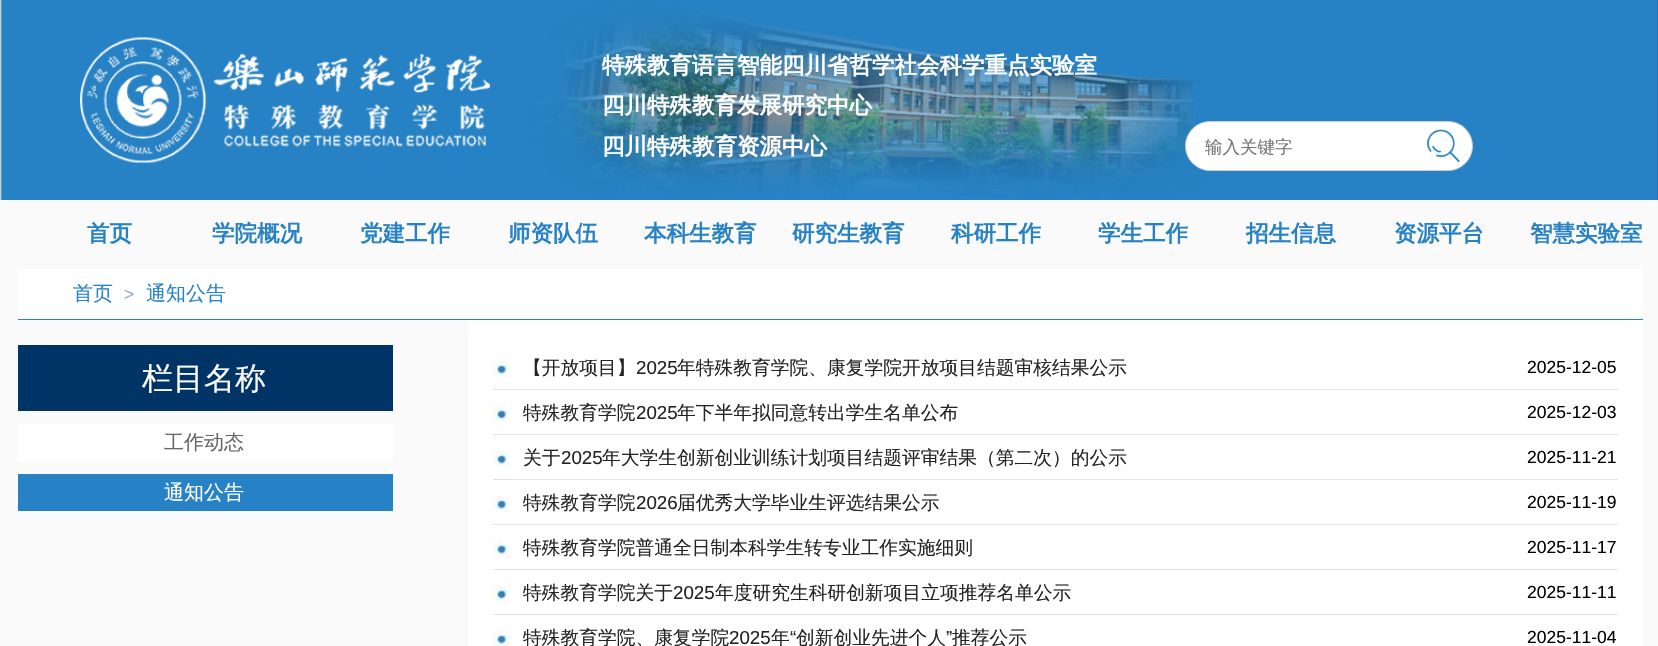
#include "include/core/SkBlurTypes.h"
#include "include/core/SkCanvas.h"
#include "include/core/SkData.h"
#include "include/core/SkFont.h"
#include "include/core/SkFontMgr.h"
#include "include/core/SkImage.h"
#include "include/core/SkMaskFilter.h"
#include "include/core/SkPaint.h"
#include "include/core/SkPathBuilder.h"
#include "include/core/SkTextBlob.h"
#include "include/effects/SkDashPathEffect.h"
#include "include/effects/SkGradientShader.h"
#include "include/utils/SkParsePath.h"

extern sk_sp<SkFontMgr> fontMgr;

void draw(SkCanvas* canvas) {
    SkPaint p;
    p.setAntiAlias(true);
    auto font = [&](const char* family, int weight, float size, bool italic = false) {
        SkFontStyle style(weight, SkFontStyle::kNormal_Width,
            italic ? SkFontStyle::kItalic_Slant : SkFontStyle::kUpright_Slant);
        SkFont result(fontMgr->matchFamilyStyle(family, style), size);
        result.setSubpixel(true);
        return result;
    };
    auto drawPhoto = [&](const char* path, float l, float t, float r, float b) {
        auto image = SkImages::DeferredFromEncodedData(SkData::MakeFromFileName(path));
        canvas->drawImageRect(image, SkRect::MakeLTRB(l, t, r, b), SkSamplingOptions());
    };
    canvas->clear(0xFFFAFAFA);
    drawPhoto("media/1.png", 0, 0, 1658, 200);
    drawPhoto("media/2.png", 80, 37, 490, 163);
    auto font1 = font("WenQuanYi Zen Hei", 700, 22.5f);
    p.setColor(0xFFFFFFFF);
    {
        const struct { const char* s; float x, y; } items[] = {
            {"特殊教育语言智能四川省哲学社会科学重点实验室", 602, 73},
            {"四川特殊教育发展研究中心", 602, 113},
            {"四川特殊教育资源中心", 602, 154},
        };
        for (auto [s, x, y] : items) {
            canvas->drawString(s, x, y, font1, p);
        }
    }
    canvas->drawRoundRect(SkRect::MakeLTRB(1185.5f, 121.5f, 1472.5f, 170.5f), 24.5f, 24.5f, p);
    p.setStyle(SkPaint::kStroke_Style);
    p.setStrokeWidth(1);
    p.setColor(0xFFCCCCCC);
    canvas->drawRoundRect(SkRect::MakeLTRB(1185.5f, 121.5f, 1472.5f, 170.5f), 24.5f, 24.5f, p);
    auto font2 = font("WenQuanYi Zen Hei", 500, 17.5f);
    p.setStyle(SkPaint::kFill_Style);
    p.setColor(0xFF757575);
    canvas->drawString("输入关键字", 1205, 153, font2, p);
    drawPhoto("media/3.png", 1426, 129, 1460, 163);
    p.setColor(0xFF2682C5);
    {
        const struct { const char* s; float x, y; } items[] = {
            {"首页", 87, 241},
            {"学院概况", 212, 241},
            {"党建工作", 360, 241},
            {"师资队伍", 508, 241},
            {"本科生教育", 644, 241},
            {"研究生教育", 792, 241},
            {"科研工作", 951, 241},
            {"学生工作", 1098, 241},
            {"招生信息", 1246, 241},
            {"资源平台", 1394, 241},
            {"智慧实验室", 1530, 241},
        };
        for (auto [s, x, y] : items) {
            canvas->drawString(s, x, y, font1, p);
        }
    }
    p.setColor(0xFFFFFFFF);
    canvas->drawRect(SkRect::MakeLTRB(18, 269, 1643, 319), p);
    p.setColor(0xFF2682C5);
    canvas->drawRect(SkRect::MakeLTRB(18, 319, 1643, 320), p);
    auto font3 = font("WenQuanYi Zen Hei", 500, 20);
    canvas->drawString("首页", 73, 300, font3, p);
    auto font4 = font("Liberation Sans", 400, 17.5f);
    p.setColor(0xFF8FABD3);
    canvas->drawString(">", 124, 300, font4, p);
    p.setColor(0xFF2682C5);
    canvas->drawString("通知公告", 146, 300, font3, p);
    p.setColor(0xFF003366);
    canvas->drawRect(SkRect::MakeLTRB(18, 345, 393, 411), p);
    auto font5 = font("WenQuanYi Zen Hei", 500, 31);
    p.setColor(0xFFFFFFFF);
    canvas->drawString("栏目名称", 142, 389, font5, p);
    canvas->drawRect(SkRect::MakeLTRB(18, 424, 393, 461), p);
    p.setColor(0xFF666666);
    canvas->drawString("工作动态", 164, 449, font3, p);
    p.setColor(0xFF2682C5);
    canvas->drawRect(SkRect::MakeLTRB(18, 474, 393, 511), p);
    p.setColor(0xFFFFFFFF);
    canvas->drawString("通知公告", 164, 499, font3, p);
    canvas->drawRect(SkRect::MakeLTRB(468, 320, 1643, 646), p);
    drawPhoto("media/4.png", 492, 361, 511, 378);
    p.setColor(0xFFE3E3E3);
    canvas->drawRect(SkRect::MakeLTRB(493, 389, 1618, 390), p);
    auto font6 = font("WenQuanYi Zen Hei", 500, 18.75f);
    p.setColor(0xFF252424);
    canvas->drawString("【开放项目】", 523, 374, font6, p);
    auto font7 = font("Liberation Sans", 400, 18.75f);
    canvas->drawString("2025", 636, 374, font7, p);
    canvas->drawString("年特殊教育学院、康复学院开放项目结题审核结果公示", 677, 374, font6, p);
    p.setColor(0xFF000000);
    canvas->drawString("2025-12-05", 1527, 373, font4, p);
    drawPhoto("media/4.png", 492, 406, 511, 423);
    p.setColor(0xFFE3E3E3);
    canvas->drawRect(SkRect::MakeLTRB(493, 434, 1618, 435), p);
    p.setColor(0xFF252424);
    canvas->drawString("特殊教育学院", 523, 419, font6, p);
    canvas->drawString("2025", 636, 419, font7, p);
    canvas->drawString("年下半年拟同意转出学生名单公布", 677, 419, font6, p);
    p.setColor(0xFF000000);
    canvas->drawString("2025-12-03", 1527, 418, font4, p);
    drawPhoto("media/4.png", 492, 451, 511, 468);
    p.setColor(0xFFE3E3E3);
    canvas->drawRect(SkRect::MakeLTRB(493, 479, 1618, 480), p);
    p.setColor(0xFF252424);
    canvas->drawString("关于", 523, 464, font6, p);
    canvas->drawString("2025", 561, 464, font7, p);
    canvas->drawString("年大学生创新创业训练计划项目结题评审结果（第二次）的公示", 602, 464, font6, p);
    p.setColor(0xFF000000);
    canvas->drawString("2025-11-21", 1527, 463, font4, p);
    drawPhoto("media/4.png", 492, 496, 511, 513);
    p.setColor(0xFFE3E3E3);
    canvas->drawRect(SkRect::MakeLTRB(493, 524, 1618, 525), p);
    p.setColor(0xFF252424);
    canvas->drawString("特殊教育学院", 523, 509, font6, p);
    canvas->drawString("2026", 636, 509, font7, p);
    canvas->drawString("届优秀大学毕业生评选结果公示", 677, 509, font6, p);
    p.setColor(0xFF000000);
    canvas->drawString("2025-11-19", 1527, 508, font4, p);
    drawPhoto("media/4.png", 492, 541, 511, 558);
    p.setColor(0xFFE3E3E3);
    canvas->drawRect(SkRect::MakeLTRB(493, 569, 1618, 570), p);
    p.setColor(0xFF252424);
    canvas->drawString("特殊教育学院普通全日制本科学生转专业工作实施细则", 523, 554, font6, p);
    p.setColor(0xFF000000);
    canvas->drawString("2025-11-17", 1527, 553, font4, p);
    drawPhoto("media/5.png", 492, 586, 511, 603);
    p.setColor(0xFFE3E3E3);
    canvas->drawRect(SkRect::MakeLTRB(493, 614, 1618, 615), p);
    p.setColor(0xFF252424);
    canvas->drawString("特殊教育学院关于", 523, 599, font6, p);
    canvas->drawString("2025", 673, 599, font7, p);
    canvas->drawString("年度研究生科研创新项目立项推荐名单公示", 715, 599, font6, p);
    p.setColor(0xFF000000);
    canvas->drawString("2025-11-11", 1527, 598, font4, p);
    drawPhoto("media/6.png", 492, 631, 511, 646);
    p.setColor(0xFF252424);
    canvas->drawString("特殊教育学院、康复学院", 523, 644, font6, p);
    canvas->drawString("2025", 729, 644, font7, p);
    canvas->drawString("年", 771, 644, font6, p);
    canvas->drawString("“", 790, 644, font7, p);
    canvas->drawString("创新创业先进个人", 796, 644, font6, p);
    canvas->drawString("”", 946, 644, font7, p);
    canvas->drawString("推荐公示", 952, 644, font6, p);
    p.setColor(0xFF000000);
    canvas->drawString("2025-11-04", 1527, 643, font4, p);
}
